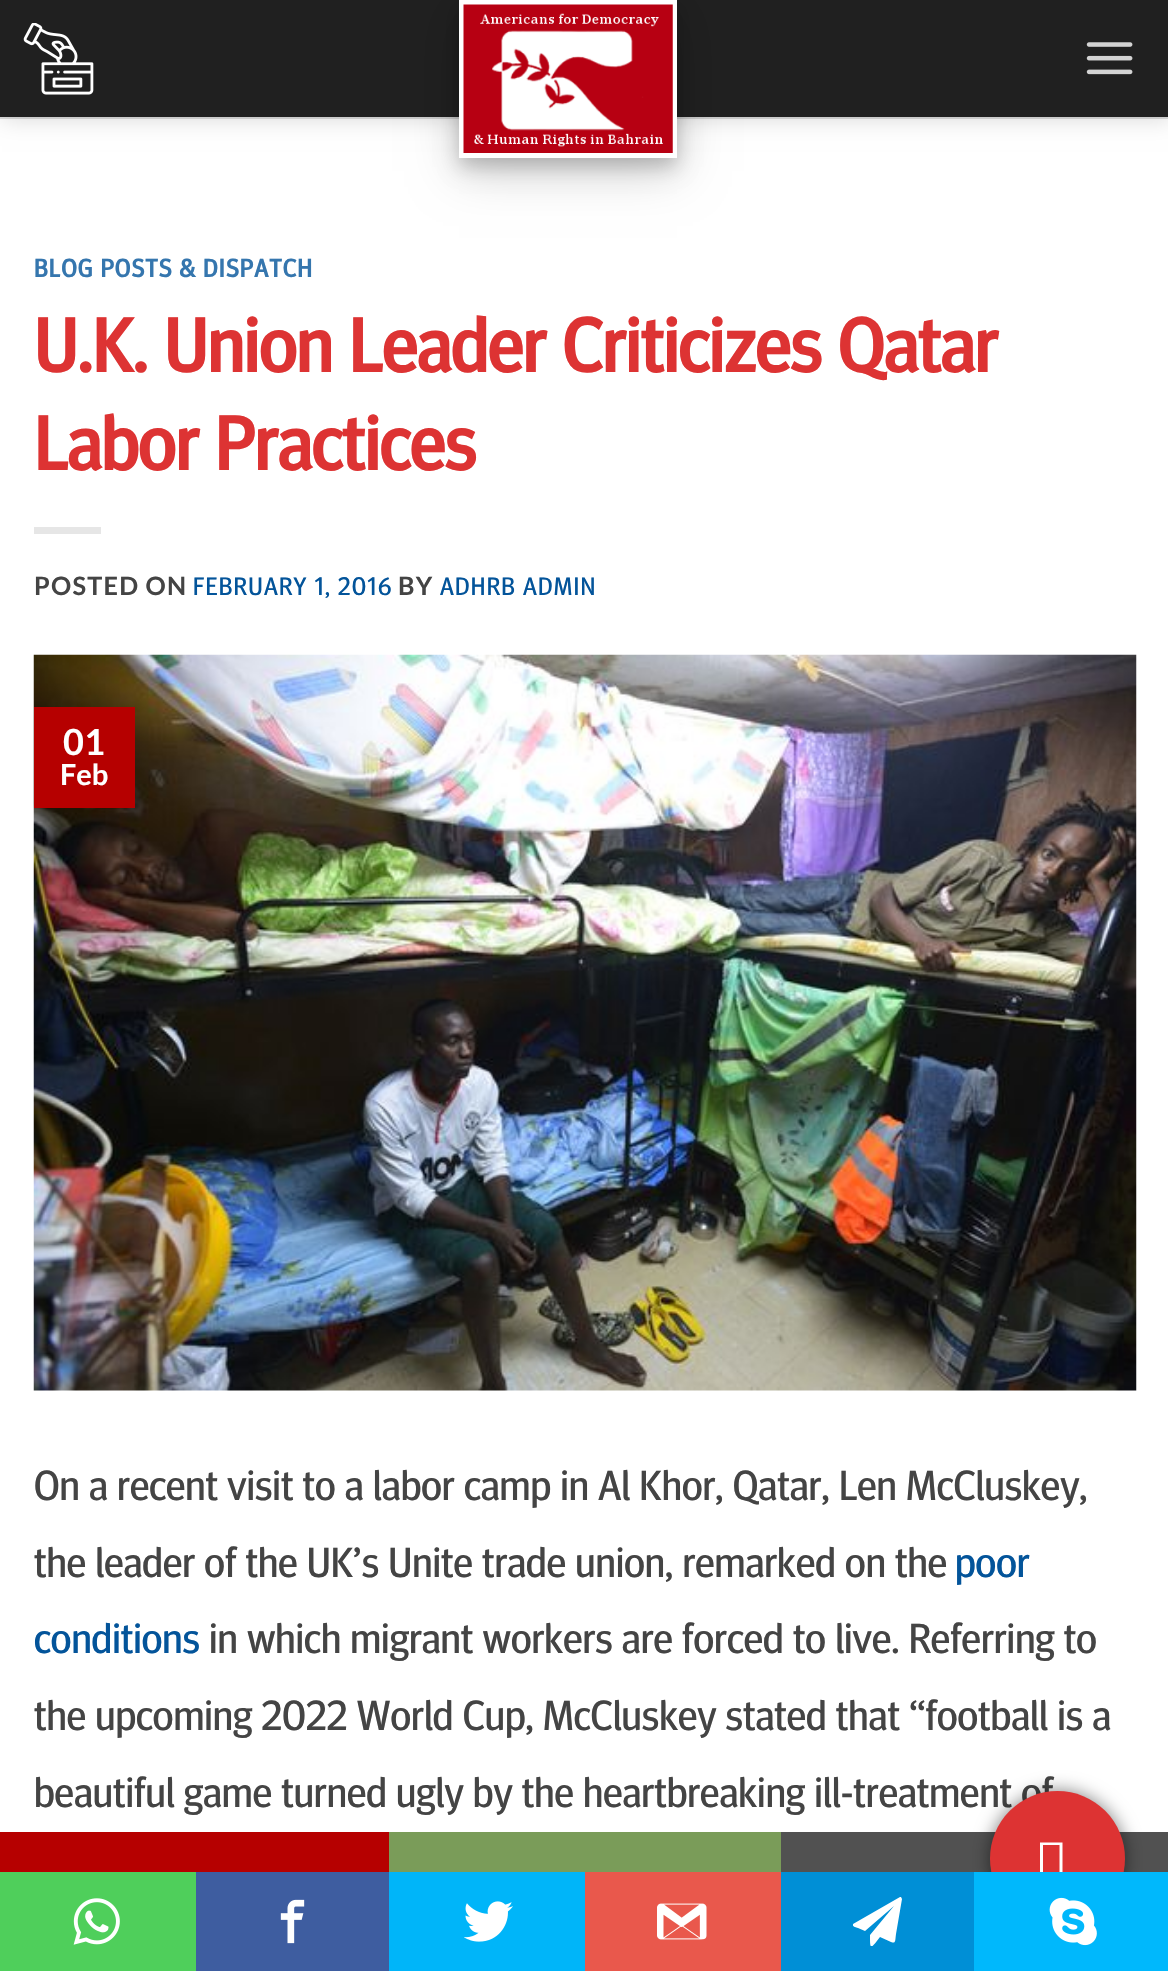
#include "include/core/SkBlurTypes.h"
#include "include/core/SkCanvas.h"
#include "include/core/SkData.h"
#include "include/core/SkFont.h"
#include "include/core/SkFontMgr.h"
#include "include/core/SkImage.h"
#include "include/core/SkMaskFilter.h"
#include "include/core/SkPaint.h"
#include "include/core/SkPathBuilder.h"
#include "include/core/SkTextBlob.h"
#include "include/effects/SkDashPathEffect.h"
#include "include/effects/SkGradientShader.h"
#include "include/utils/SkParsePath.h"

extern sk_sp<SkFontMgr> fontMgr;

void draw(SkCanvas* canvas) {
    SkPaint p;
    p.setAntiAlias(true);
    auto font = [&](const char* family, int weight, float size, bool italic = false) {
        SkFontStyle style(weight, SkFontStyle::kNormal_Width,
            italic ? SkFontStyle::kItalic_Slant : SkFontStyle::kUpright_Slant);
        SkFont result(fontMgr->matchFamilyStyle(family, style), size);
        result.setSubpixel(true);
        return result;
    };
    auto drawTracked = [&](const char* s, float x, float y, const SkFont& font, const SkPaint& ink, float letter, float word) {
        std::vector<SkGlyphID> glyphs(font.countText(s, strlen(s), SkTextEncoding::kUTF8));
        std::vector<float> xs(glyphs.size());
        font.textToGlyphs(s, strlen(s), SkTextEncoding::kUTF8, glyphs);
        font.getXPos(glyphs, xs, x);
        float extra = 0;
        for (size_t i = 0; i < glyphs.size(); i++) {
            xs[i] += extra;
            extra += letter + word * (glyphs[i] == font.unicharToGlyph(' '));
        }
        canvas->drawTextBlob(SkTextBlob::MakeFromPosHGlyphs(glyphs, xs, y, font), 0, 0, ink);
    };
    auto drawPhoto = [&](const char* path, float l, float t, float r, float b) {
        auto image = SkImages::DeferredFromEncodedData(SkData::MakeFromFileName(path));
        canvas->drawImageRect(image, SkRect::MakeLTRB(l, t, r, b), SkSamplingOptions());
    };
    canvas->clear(0xFFFFFFFF);
    p.setColor(0xFFDDDDDD);
    canvas->drawRect(SkRect::MakeLTRB(0, 117, 1168, 119), p);
    p.setColor(0x26000000);
    p.setMaskFilter(SkMaskFilter::MakeBlur(kNormal_SkBlurStyle, 11));
    canvas->drawRect(SkRect::MakeLTRB(2, 2, 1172, 119), p);
    p.setMaskFilter(nullptr);
    p.setColor(0xFF202020);
    canvas->drawRect(SkRect::MakeLTRB(0, 0, 1168, 117), p);
    drawPhoto("media/1.png", 23, 23, 94, 95);
    p.setColor(0x30000000);
    p.setMaskFilter(SkMaskFilter::MakeBlur(kNormal_SkBlurStyle, 22.5f));
    canvas->drawRect(SkRect::MakeLTRB(459, 14, 677, 171), p);
    p.setMaskFilter(nullptr);
    p.setColor(0x33000000);
    p.setMaskFilter(SkMaskFilter::MakeBlur(kNormal_SkBlurStyle, 9));
    canvas->drawRect(SkRect::MakeLTRB(459, 9, 677, 167), p);
    p.setMaskFilter(nullptr);
    p.setStyle(SkPaint::kStroke_Style);
    p.setStrokeWidth(5);
    p.setColor(0xFFFFFFFF);
    canvas->drawRect(SkRect::MakeLTRB(461.5f, 2.5f, 674.5f, 155.5f), p);
    drawPhoto("media/2.png", 463, 4, 673, 153);
    drawPhoto("media/3.png", 1086, 42, 1133, 75);
    auto font1 = font("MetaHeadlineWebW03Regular", 700, 25.25f);
    p.setStyle(SkPaint::kFill_Style);
    p.setColor(0xFF3576AE);
    drawTracked("BLOG POSTS & DISPATCH", 34, 277, font1, p, 1.25f, 0);
    auto font2 = font("MetaHeadlineWebW03Regular", 700, 75.6f);
    p.setColor(0xFFDD3333);
    canvas->drawString("U.K. Union Leader Criticizes Qatar", 34, 372, font2, p);
    canvas->drawString("Labor Practices", 34, 470, font2, p);
    p.setColor(0xFFE6E6E6);
    canvas->drawRect(SkRect::MakeLTRB(34, 527, 101, 534), p);
    auto font3 = font("Lato", 700, 25.25f);
    p.setColor(0xFF444444);
    drawTracked("POSTED ON", 34, 595, font3, p, 1.25f, 0);
    auto font4 = font("MetaHeadlineWebW03Regular", 400, 25.25f);
    p.setColor(0xFF03549A);
    drawTracked("FEBRUARY 1, 2016", 193, 595, font4, p, 1.25f, 0);
    p.setColor(0xFF444444);
    drawTracked("BY", 398, 595, font3, p, 1.25f, 0);
    p.setColor(0xFF03549A);
    drawTracked("ADHRB ADMIN", 440, 595, font4, p, 1.25f, 0);
    drawPhoto("media/4.png", 33, 654, 1137, 1391);
    p.setColor(0xFFB60000);
    canvas->drawRect(SkRect::MakeLTRB(34, 707, 135, 808), p);
    auto font5 = font("Lato", 700, 36);
    p.setColor(0xFFFFFFFF);
    canvas->drawString("01", 63, 755, font5, p);
    auto font6 = font("Lato", 700, 29);
    canvas->drawString("Feb", 60, 785, font6, p);
    auto font7 = font("MetaHeadlineWebW03Regular", 400, 42);
    p.setColor(0xFF444444);
    canvas->drawString("On a recent visit to a labor camp in Al Khor, Qatar, Len McCluskey,", 34, 1500, font7, p);
    canvas->drawString("the leader of the UK’s Unite trade union, remarked on the", 34, 1577, font7, p);
    p.setColor(0xFF03549A);
    canvas->drawString("poor", 955, 1577, font7, p);
    canvas->drawString("conditions", 34, 1653, font7, p);
    p.setColor(0xFF444444);
    {
        const struct { const char* s; float x, y; } items[] = {
            {"in which migrant workers are forced to live. Referring to", 209, 1653},
            {"the upcoming 2022 World Cup, McCluskey stated that “football is a", 34, 1730},
            {"beautiful game turned ugly by the heartbreaking ill-treatment of", 34, 1807},
        };
        for (auto [s, x, y] : items) {
            canvas->drawString(s, x, y, font7, p);
        }
    }
    p.setColor(0xFF515151);
    canvas->drawRect(SkRect::MakeLTRB(781, 1832, 1168, 1872), p);
    p.setColor(0x80000000);
    p.setMaskFilter(SkMaskFilter::MakeBlur(kNormal_SkBlurStyle, 9));
    canvas->drawRoundRect(SkRect::MakeLTRB(990, 1791, 1125, 1926), 67.5f, 67.5f, p);
    p.setMaskFilter(nullptr);
    p.setColor(0xFFDD3333);
    canvas->drawCircle(1057.5f, 1858.5f, 67.5f, p);
    p.setColor(0xFFFFFFFF);
    canvas->drawPath(SkPathBuilder().moveTo(1040, 1881).lineTo(1040, 1842.5f).lineTo(1062.5f, 1842.5f).lineTo(1062.5f, 1881).close().moveTo(1043, 1878).lineTo(1059.5f, 1878).lineTo(1059.5f, 1845).lineTo(1043, 1845).close().detach(), p);
    {
        const struct { float l, t, r, b; SkColor color; } items[] = {
            {0, 1832, 389, 1872, 0xFFB60000},
            {389, 1832, 781, 1872, 0xFF7A9C59},
            {0, 1872, 196, 1971, 0xFF4FCF5B},
        };
        for (auto [l, t, r, b, color] : items) {
            p.setColor(color);
            canvas->drawRect(SkRect::MakeLTRB(l, t, r, b), p);
        }
    }
    drawPhoto("media/5.png", 73, 1898, 120, 1945);
    p.setColor(0xFF3E5DA0);
    canvas->drawRect(SkRect::MakeLTRB(196, 1872, 389, 1971), p);
    drawPhoto("media/6.png", 280, 1899, 305, 1944);
    p.setColor(0xFF00B5F9);
    canvas->drawRect(SkRect::MakeLTRB(389, 1872, 585, 1971), p);
    drawPhoto("media/7.png", 464, 1901, 513, 1942);
    p.setColor(0xFFE9584C);
    canvas->drawRect(SkRect::MakeLTRB(585, 1872, 781, 1971), p);
    drawPhoto("media/8.png", 657, 1903, 707, 1940);
    p.setColor(0xFF008FD6);
    canvas->drawRect(SkRect::MakeLTRB(781, 1872, 974, 1971), p);
    canvas->save();
    canvas->clipRect(SkRect::MakeLTRB(853, 1897, 902, 1946));
    p.setColor(0xFFFFFFFF);
    canvas->drawPath(SkPathBuilder().moveTo(901, 1897).lineTo(902, 1899).lineTo(896, 1934).cubicTo(895, 1941, 896, 1944, 891, 1942).lineTo(880, 1937).cubicTo(870, 1950, 870, 1950, 870, 1935).lineTo(894, 1906).lineTo(865, 1931).lineTo(858, 1928).cubicTo(857, 1928, 851, 1926, 853, 1924).lineTo(900, 1897).close().detach(), p);
    canvas->restore();
    p.setColor(0xFF00B8FC);
    canvas->drawRect(SkRect::MakeLTRB(974, 1872, 1168, 1971), p);
    drawPhoto("media/9.png", 1049, 1897, 1097, 1946);
}
